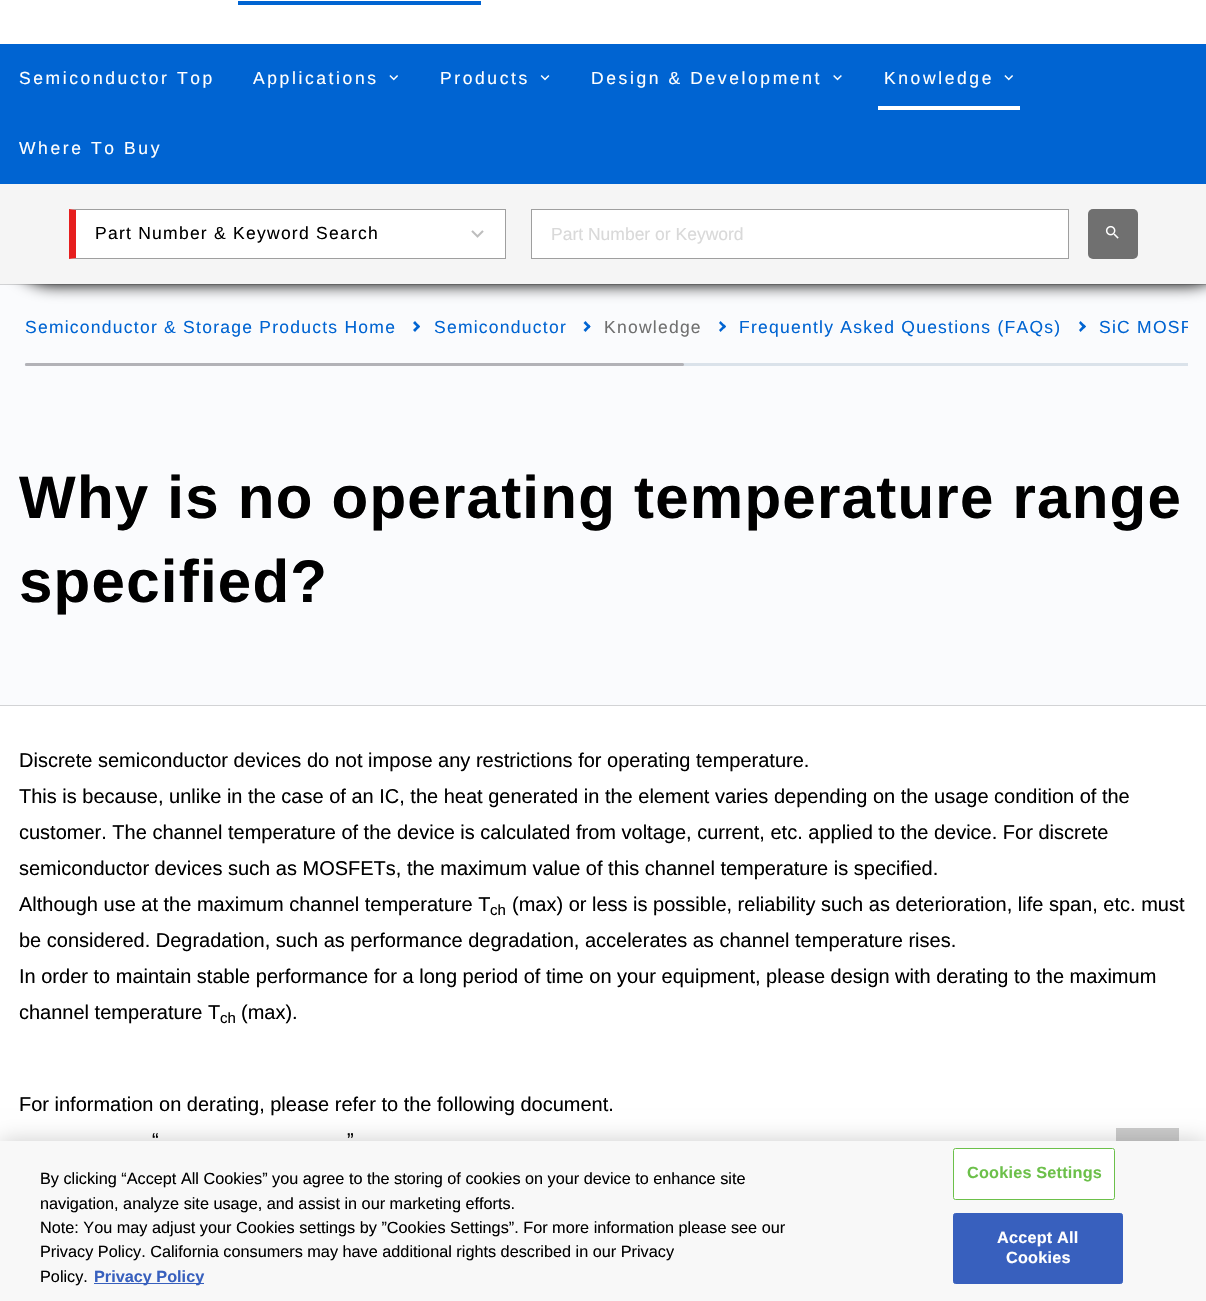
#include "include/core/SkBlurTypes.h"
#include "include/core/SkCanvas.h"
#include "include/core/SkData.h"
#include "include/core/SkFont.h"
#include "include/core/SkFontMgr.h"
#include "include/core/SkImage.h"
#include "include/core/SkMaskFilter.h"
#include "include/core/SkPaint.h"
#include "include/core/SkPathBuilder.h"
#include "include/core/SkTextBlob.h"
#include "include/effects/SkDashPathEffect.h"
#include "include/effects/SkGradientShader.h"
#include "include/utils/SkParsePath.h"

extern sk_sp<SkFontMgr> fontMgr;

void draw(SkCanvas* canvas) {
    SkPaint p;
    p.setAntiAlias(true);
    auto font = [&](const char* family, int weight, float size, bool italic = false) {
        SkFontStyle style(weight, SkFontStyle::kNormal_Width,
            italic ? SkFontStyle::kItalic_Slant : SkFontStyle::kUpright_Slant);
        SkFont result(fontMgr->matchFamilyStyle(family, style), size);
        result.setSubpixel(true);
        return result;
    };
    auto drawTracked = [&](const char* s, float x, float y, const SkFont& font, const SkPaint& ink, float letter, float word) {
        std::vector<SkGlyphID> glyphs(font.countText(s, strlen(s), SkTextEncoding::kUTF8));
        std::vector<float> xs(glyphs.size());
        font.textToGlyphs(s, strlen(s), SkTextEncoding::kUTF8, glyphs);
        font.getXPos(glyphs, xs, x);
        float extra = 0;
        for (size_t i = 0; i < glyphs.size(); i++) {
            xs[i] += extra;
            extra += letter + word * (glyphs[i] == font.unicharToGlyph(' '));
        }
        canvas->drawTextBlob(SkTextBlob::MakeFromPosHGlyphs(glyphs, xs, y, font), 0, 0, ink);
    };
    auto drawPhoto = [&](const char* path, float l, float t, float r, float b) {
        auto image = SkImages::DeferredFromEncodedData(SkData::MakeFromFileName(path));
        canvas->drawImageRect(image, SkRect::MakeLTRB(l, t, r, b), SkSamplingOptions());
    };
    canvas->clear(0xFFFFFFFF);
    {
        const struct { float l, t, r, b; SkColor color; } items[] = {
            {238, 1, 481, 5, 0xFF0064D2},
            {0, 285, 1206, 705, 0xFFFAFBFD},
            {0, 284, 1206, 285, 0xFFD2D3D5},
        };
        for (auto [l, t, r, b, color] : items) {
            p.setColor(color);
            canvas->drawRect(SkRect::MakeLTRB(l, t, r, b), p);
        }
    }
    p.setColor(0xFF000000);
    p.setMaskFilter(SkMaskFilter::MakeBlur(kNormal_SkBlurStyle, 8));
    canvas->drawRoundRect(SkRect::MakeLTRB(5, 189, 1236, 285), 48, 48, p);
    p.setMaskFilter(nullptr);
    p.setColor(0xFF0064D2);
    canvas->drawRect(SkRect::MakeLTRB(0, 44, 1206, 184), p);
    auto font1 = font("Liberation Sans", 400, 17.5f);
    p.setColor(0xFFFFFFFF);
    drawTracked("Semiconductor Top", 19, 84, font1, p, 2.6f, 0);
    drawTracked("Applications", 253, 84, font1, p, 2.6f, 0);
    drawPhoto("media/1.png", 389, 75, 398, 81);
    drawTracked("Products", 440, 84, font1, p, 2.6f, 0);
    drawPhoto("media/2.png", 540, 75, 550, 81);
    drawTracked("Design & Development", 591, 84, font1, p, 2.6f, 0);
    drawPhoto("media/3.png", 833, 75, 842, 81);
    drawTracked("Knowledge", 884, 84, font1, p, 2.6f, 0);
    canvas->drawRect(SkRect::MakeLTRB(878, 106, 1020, 110), p);
    drawPhoto("media/1.png", 1004, 75, 1013, 81);
    drawTracked("Where To Buy", 19, 154, font1, p, 2.6f, 0);
    p.setColor(0xFFF5F5F5);
    canvas->drawRect(SkRect::MakeLTRB(0, 184, 1206, 284), p);
    p.setColor(0xFFFFFFFF);
    canvas->drawRect(SkRect::MakeLTRB(76, 210, 505, 258), p);
    p.setColor(0xFF9F9F9F);
    canvas->drawPath(SkPathBuilder().moveTo(69, 209).lineTo(506, 209).lineTo(505, 210).lineTo(76, 210).close().detach(), p);
    canvas->drawRect(SkRect::MakeLTRB(505, 209, 506, 259), p);
    canvas->drawPath(SkPathBuilder().moveTo(506, 259).lineTo(69, 259).lineTo(76, 258).lineTo(505, 258).close().detach(), p);
    p.setColor(0xFFE61E1E);
    canvas->drawPath(SkPathBuilder().moveTo(69, 259).lineTo(69, 209).lineTo(76, 210).lineTo(76, 258).close().detach(), p);
    p.setColor(0xFF000000);
    drawTracked("Part Number & Keyword Search", 95, 239, font1, p, 1.25f, 0);
    drawPhoto("media/4.png", 471, 230, 484, 238);
    p.setColor(0xFFFFFFFF);
    canvas->drawRect(SkRect::MakeLTRB(531.5f, 209.5f, 1068.5f, 258.5f), p);
    p.setStyle(SkPaint::kStroke_Style);
    p.setStrokeWidth(1);
    p.setColor(0xFF9F9F9F);
    canvas->drawRect(SkRect::MakeLTRB(531.5f, 209.5f, 1068.5f, 258.5f), p);
    p.setStyle(SkPaint::kFill_Style);
    p.setColor(0xFFD9D9D9);
    canvas->drawString("Part Number or Keyword", 551, 240, font1, p);
    p.setColor(0xFF707070);
    canvas->drawRoundRect(SkRect::MakeLTRB(1088, 209, 1138, 259), 5, 5, p);
    drawPhoto("media/5.png", 1105, 225, 1119, 239);
    p.setColor(0xFFD2D3D5);
    canvas->drawRect(SkRect::MakeLTRB(0, 705, 1206, 706), p);
    p.setColor(0xFF0064D2);
    drawTracked("Semiconductor & Storage Products Home", 25, 333, font1, p, 1.25f, 0);
    canvas->drawPath(SkPathBuilder().moveTo(415, 321).lineTo(420, 326.5f).lineTo(418.5f, 328.5f).lineTo(413, 323).close().detach(), p);
    canvas->drawPath(SkPathBuilder().moveTo(418.5f, 324.5f).lineTo(420, 326.5f).lineTo(415, 332).lineTo(413, 330).close().detach(), p);
    drawTracked("Semiconductor", 434, 333, font1, p, 1.25f, 0);
    canvas->drawPath(SkPathBuilder().moveTo(585.5f, 321).lineTo(590.5f, 326.5f).lineTo(589, 328.5f).lineTo(583.5f, 323).close().detach(), p);
    canvas->drawPath(SkPathBuilder().moveTo(589, 324.5f).lineTo(590.5f, 326.5f).lineTo(585.5f, 332).lineTo(583.5f, 330).close().detach(), p);
    p.setColor(0xFF707070);
    drawTracked("Knowledge", 604, 333, font1, p, 1.25f, 0);
    p.setColor(0xFF0064D2);
    canvas->drawPath(SkPathBuilder().moveTo(720.5f, 321).lineTo(726, 326.5f).lineTo(724.5f, 328.5f).lineTo(719, 323).close().detach(), p);
    canvas->drawPath(SkPathBuilder().moveTo(724.5f, 324.5f).lineTo(726, 326.5f).lineTo(720.5f, 332).lineTo(719, 330).close().detach(), p);
    drawTracked("Frequently Asked Questions (FAQs)", 739, 333, font1, p, 1.25f, 0);
    canvas->drawPath(SkPathBuilder().moveTo(1080.5f, 321).lineTo(1086, 326.5f).lineTo(1084, 328.5f).lineTo(1079, 323).close().detach(), p);
    canvas->drawPath(SkPathBuilder().moveTo(1084, 324.5f).lineTo(1086, 326.5f).lineTo(1080.5f, 332).lineTo(1079, 330).close().detach(), p);
    canvas->save();
    canvas->clipRect(SkRect::MakeLTRB(25, 310, 1188, 374));
    drawTracked("SiC MOSF", 1099, 333, font1, p, 1.25f, 0);
    canvas->restore();
    p.setColor(0xFFDAE2EA);
    canvas->drawRect(SkRect::MakeLTRB(25, 363, 1188, 366), p);
    p.setColor(0xFFB2B2B7);
    canvas->drawRoundRect(SkRect::MakeLTRB(25, 363, 684, 366), 1.5f, 1.5f, p);
    auto font2 = font("Liberation Sans", 700, 60);
    p.setColor(0xFF000000);
    drawTracked("Why is no operating temperature range", 19, 518, font2, p, 1.25f, 0);
    drawTracked("specified?", 19, 602, font2, p, 1.25f, 0);
    auto font3 = font("Liberation Sans", 400, 20);
    {
        const struct { const char* s; float x, y; } items[] = {
            {"Discrete semiconductor devices do not impose any restrictions for operating temperature.", 19, 767},
            {"This is because, unlike in the case of an IC, the heat generated in the element varies depending on the usage condition of the", 19, 803},
            {"customer. The channel temperature of the device is calculated from voltage, current, etc. applied to the device. For discrete", 19, 839},
            {"semiconductor devices such as MOSFETs, the maximum value of this channel temperature is specified.", 19, 875},
            {"Although use at the maximum channel temperature T", 19, 911},
        };
        for (auto [s, x, y] : items) {
            canvas->drawString(s, x, y, font3, p);
        }
    }
    auto font4 = font("Liberation Sans", 400, 15);
    canvas->drawString("ch", 490, 915, font4, p);
    {
        const struct { const char* s; float x, y; } items[] = {
            {"(max) or less is possible, reliability such as deterioration, life span, etc. must", 512, 911},
            {"be considered. Degradation, such as performance degradation, accelerates as channel temperature rises.", 19, 947},
            {"In order to maintain stable performance for a long period of time on your equipment, please design with derating to the maximum", 19, 983},
            {"channel temperature T", 19, 1019},
        };
        for (auto [s, x, y] : items) {
            canvas->drawString(s, x, y, font3, p);
        }
    }
    canvas->drawString("ch", 220, 1023, font4, p);
    {
        const struct { const char* s; float x, y; } items[] = {
            {"(max).", 241, 1019},
            {"For information on derating, please refer to the following document.", 19, 1111},
            {"“", 152, 1147},
            {"”", 347, 1147},
        };
        for (auto [s, x, y] : items) {
            canvas->drawString(s, x, y, font3, p);
        }
    }
    p.setColor(0xFFCCCCCC);
    canvas->drawRect(SkRect::MakeLTRB(1116, 1128, 1179, 1141), p);
    p.setColor(0x33000000);
    p.setMaskFilter(SkMaskFilter::MakeBlur(kNormal_SkBlurStyle, 11));
    canvas->drawRect(SkRect::MakeLTRB(0, 1141, 1206, 1301), p);
    p.setMaskFilter(nullptr);
    p.setColor(0xFFF8F8F8);
    canvas->drawRect(SkRect::MakeLTRB(0, 1141, 1206, 1301), p);
    auto font5 = font("Liberation Sans", 400, 16.25f);
    p.setColor(0xFF000000);
    {
        const struct { const char* s; float x, y; } items[] = {
            {"By clicking “Accept All Cookies” you agree to the storing of cookies on your device to enhance site", 40, 1184},
            {"navigation, analyze site usage, and assist in our marketing efforts.", 40, 1209},
            {"Note: You may adjust your Cookies settings by ”Cookies Settings”. For more information please see our", 40, 1233},
            {"Privacy Policy. California consumers may have additional rights described in our Privacy", 40, 1257},
            {"Policy.", 40, 1282},
        };
        for (auto [s, x, y] : items) {
            canvas->drawString(s, x, y, font5, p);
        }
    }
    p.setColor(0xFF3860BE);
    canvas->drawRect(SkRect::MakeLTRB(94, 1283, 204, 1284), p);
    auto font6 = font("Liberation Sans", 700, 16.25f);
    canvas->drawString("Privacy Policy", 94, 1282, font6, p);
    p.setColor(0xFFFFFFFF);
    canvas->drawRoundRect(SkRect::MakeLTRB(953.5f, 1148.5f, 1114.5f, 1199.5f), 2, 2, p);
    p.setStyle(SkPaint::kStroke_Style);
    p.setColor(0xFF6CC04A);
    canvas->drawRoundRect(SkRect::MakeLTRB(953.5f, 1148.5f, 1114.5f, 1199.5f), 2, 2, p);
    p.setStyle(SkPaint::kFill_Style);
    drawTracked("Cookies Settings", 967, 1178, font6, p, 0.2f, 0);
    p.setColor(0xFF3860BE);
    canvas->drawRoundRect(SkRect::MakeLTRB(953.5f, 1213.5f, 1122.5f, 1283.5f), 2, 2, p);
    p.setStyle(SkPaint::kStroke_Style);
    canvas->drawRoundRect(SkRect::MakeLTRB(953.5f, 1213.5f, 1122.5f, 1283.5f), 2, 2, p);
    p.setStyle(SkPaint::kFill_Style);
    p.setColor(0xFFFFFFFF);
    drawTracked("Accept All", 997, 1243, font6, p, 0.2f, 0);
    drawTracked("Cookies", 1006, 1263, font6, p, 0.2f, 0);
}
